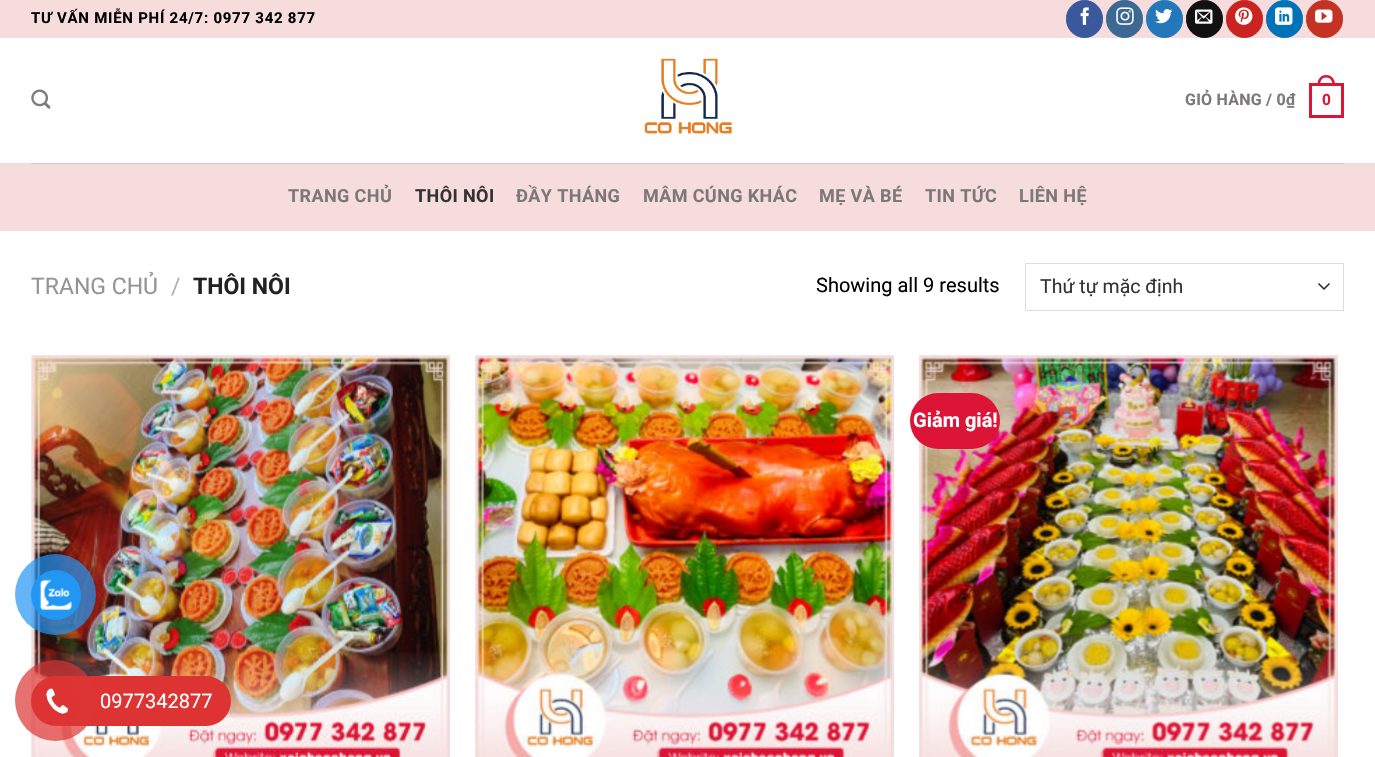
#include "include/core/SkBlurTypes.h"
#include "include/core/SkCanvas.h"
#include "include/core/SkData.h"
#include "include/core/SkFont.h"
#include "include/core/SkFontMgr.h"
#include "include/core/SkImage.h"
#include "include/core/SkMaskFilter.h"
#include "include/core/SkPaint.h"
#include "include/core/SkPathBuilder.h"
#include "include/core/SkTextBlob.h"
#include "include/effects/SkDashPathEffect.h"
#include "include/effects/SkGradientShader.h"
#include "include/utils/SkParsePath.h"

extern sk_sp<SkFontMgr> fontMgr;

void draw(SkCanvas* canvas) {
    SkPaint p;
    p.setAntiAlias(true);
    auto font = [&](const char* family, int weight, float size, bool italic = false) {
        SkFontStyle style(weight, SkFontStyle::kNormal_Width,
            italic ? SkFontStyle::kItalic_Slant : SkFontStyle::kUpright_Slant);
        SkFont result(fontMgr->matchFamilyStyle(family, style), size);
        result.setSubpixel(true);
        return result;
    };
    auto drawTracked = [&](const char* s, float x, float y, const SkFont& font, const SkPaint& ink, float letter, float word) {
        std::vector<SkGlyphID> glyphs(font.countText(s, strlen(s), SkTextEncoding::kUTF8));
        std::vector<float> xs(glyphs.size());
        font.textToGlyphs(s, strlen(s), SkTextEncoding::kUTF8, glyphs);
        font.getXPos(glyphs, xs, x);
        float extra = 0;
        for (size_t i = 0; i < glyphs.size(); i++) {
            xs[i] += extra;
            extra += letter + word * (glyphs[i] == font.unicharToGlyph(' '));
        }
        canvas->drawTextBlob(SkTextBlob::MakeFromPosHGlyphs(glyphs, xs, y, font), 0, 0, ink);
    };
    auto drawPhoto = [&](const char* path, float l, float t, float r, float b) {
        auto image = SkImages::DeferredFromEncodedData(SkData::MakeFromFileName(path));
        canvas->drawImageRect(image, SkRect::MakeLTRB(l, t, r, b), SkSamplingOptions());
    };
    canvas->clear(0xFFFFFFFF);
    p.setColor(0xFFF6DCDC);
    canvas->drawRect(SkRect::MakeLTRB(0, 0, 1375, 38), p);
    auto font1 = font("Roboto", 700, 15);
    p.setColor(0xFF000000);
    drawTracked("TƯ VẤN MIỄN PHÍ 24/7: 0977 342 877", 31, 23, font1, p, 0.75f, 0);
    p.setColor(0xFF3A589D);
    canvas->drawRoundRect(SkRect::MakeLTRB(1066.5f, 0.5f, 1102.5f, 37.5f), 18, 18, p);
    p.setStyle(SkPaint::kStroke_Style);
    p.setStrokeWidth(1);
    canvas->drawRoundRect(SkRect::MakeLTRB(1066.5f, 0.5f, 1102.5f, 37.5f), 18, 18, p);
    drawPhoto("media/1.png", 1080, 7, 1089, 25);
    p.setStyle(SkPaint::kFill_Style);
    p.setColor(0xFF3B6994);
    canvas->drawRoundRect(SkRect::MakeLTRB(1106.5f, 0.5f, 1142.5f, 37.5f), 18, 18, p);
    p.setStyle(SkPaint::kStroke_Style);
    canvas->drawRoundRect(SkRect::MakeLTRB(1106.5f, 0.5f, 1142.5f, 37.5f), 18, 18, p);
    drawPhoto("media/2.png", 1116, 7, 1134, 25);
    p.setStyle(SkPaint::kFill_Style);
    p.setColor(0xFF2478BA);
    canvas->drawRoundRect(SkRect::MakeLTRB(1146.5f, 0.5f, 1182.5f, 37.5f), 18, 18, p);
    p.setStyle(SkPaint::kStroke_Style);
    canvas->drawRoundRect(SkRect::MakeLTRB(1146.5f, 0.5f, 1182.5f, 37.5f), 18, 18, p);
    drawPhoto("media/3.png", 1155, 9, 1173, 24);
    p.setStyle(SkPaint::kFill_Style);
    p.setColor(0xFF111111);
    canvas->drawRoundRect(SkRect::MakeLTRB(1186.5f, 0.5f, 1222.5f, 37.5f), 18, 18, p);
    p.setStyle(SkPaint::kStroke_Style);
    canvas->drawRoundRect(SkRect::MakeLTRB(1186.5f, 0.5f, 1222.5f, 37.5f), 18, 18, p);
    drawPhoto("media/4.png", 1195, 9, 1213, 24);
    p.setStyle(SkPaint::kFill_Style);
    p.setColor(0xFFCB2320);
    canvas->drawRoundRect(SkRect::MakeLTRB(1226.5f, 0.5f, 1262.5f, 37.5f), 18, 18, p);
    p.setStyle(SkPaint::kStroke_Style);
    canvas->drawRoundRect(SkRect::MakeLTRB(1226.5f, 0.5f, 1262.5f, 37.5f), 18, 18, p);
    drawPhoto("media/5.png", 1235, 7, 1253, 25);
    p.setStyle(SkPaint::kFill_Style);
    p.setColor(0xFF0072B7);
    canvas->drawRoundRect(SkRect::MakeLTRB(1266.5f, 0.5f, 1302.5f, 37.5f), 18, 18, p);
    p.setStyle(SkPaint::kStroke_Style);
    canvas->drawRoundRect(SkRect::MakeLTRB(1266.5f, 0.5f, 1302.5f, 37.5f), 18, 18, p);
    drawPhoto("media/6.png", 1275, 7, 1293, 25);
    p.setStyle(SkPaint::kFill_Style);
    p.setColor(0xFFC33223);
    canvas->drawRoundRect(SkRect::MakeLTRB(1306.5f, 0.5f, 1342.5f, 37.5f), 18, 18, p);
    p.setStyle(SkPaint::kStroke_Style);
    canvas->drawRoundRect(SkRect::MakeLTRB(1306.5f, 0.5f, 1342.5f, 37.5f), 18, 18, p);
    drawPhoto("media/7.png", 1315, 9, 1333, 23);
    drawPhoto("media/8.png", 31, 89, 51, 109);
    drawPhoto("media/9.png", 644, 58, 732, 134);
    auto font2 = font("Roboto", 700, 16);
    p.setStyle(SkPaint::kFill_Style);
    p.setColor(0xFF7C7878);
    drawTracked("GIỎ HÀNG / 0₫", 1185, 105, font2, p, 0.25f, 0);
    p.setStyle(SkPaint::kStroke_Style);
    p.setStrokeWidth(3);
    p.setColor(0xFFDC1435);
    canvas->drawRect(SkRect::MakeLTRB(1310.5f, 84.5f, 1342.5f, 116.5f), p);
    p.setStyle(SkPaint::kFill_Style);
    canvas->drawPath(SkPathBuilder(SkPathFillType::kEvenOdd).moveTo(1326, 75).cubicTo(1332, 75, 1335, 79.5f, 1335, 85).lineTo(1317.5f, 85).cubicTo(1317.5f, 79.5f, 1320.5f, 75, 1326, 75).close().moveTo(1326, 77.5f).cubicTo(1330.5f, 77.5f, 1332.5f, 81, 1332.5f, 85).lineTo(1320, 85).cubicTo(1320, 81, 1322, 77.5f, 1326, 77.5f).close().detach(), p);
    auto font3 = font("Liberation Sans", 700, 16);
    drawTracked("0", 1322, 105, font3, p, 0.25f, 0);
    p.setColor(0xFFF6DCDC);
    canvas->drawRect(SkRect::MakeLTRB(0, 163, 1375, 231), p);
    p.setColor(0xFFDDC6C6);
    canvas->drawRect(SkRect::MakeLTRB(31, 163, 1344, 164), p);
    auto font4 = font("Roboto", 700, 18);
    p.setColor(0xFF7C7878);
    drawTracked("TRANG CHỦ", 288, 202, font4, p, 0.4f, 0);
    p.setColor(0xFF333333);
    drawTracked("THÔI NÔI", 415, 202, font4, p, 0.4f, 0);
    p.setColor(0xFF7C7878);
    {
        const struct { const char* s; float x, y; } items[] = {
            {"ĐẦY THÁNG", 516, 202},
            {"MÂM CÚNG KHÁC", 643, 202},
            {"MẸ VÀ BÉ", 819, 202},
            {"TIN TỨC", 925, 202},
            {"LIÊN HỆ", 1019, 202},
        };
        for (auto [s, x, y] : items) {
            drawTracked(s, x, y, font4, p, 0.4f, 0);
        }
    }
    auto font5 = font("Roboto", 400, 23);
    p.setColor(0xFF949494);
    canvas->drawString("TRANG CHỦ", 31, 294, font5, p);
    p.setColor(0xFFB2B2B2);
    canvas->drawString("/", 171, 294, font5, p);
    auto font6 = font("Roboto", 700, 23);
    p.setColor(0xFF222222);
    canvas->drawString("THÔI NÔI", 193, 294, font6, p);
    auto font7 = font("Roboto", 400, 20);
    p.setColor(0xFF000000);
    canvas->drawString("Showing all 9 results", 816, 292, font7, p);
    p.setStyle(SkPaint::kStroke_Style);
    p.setStrokeWidth(1.7f);
    p.setStrokeCap(SkPaint::kRound_Cap);
    p.setStrokeJoin(SkPaint::kRound_Join);
    p.setColor(0xFF333333);
    canvas->drawPath(SkPathBuilder().moveTo(1319, 284).lineTo(1324, 289).lineTo(1329, 284).detach(), p);
    p.setStrokeWidth(1);
    p.setStrokeCap(SkPaint::kButt_Cap);
    p.setStrokeJoin(SkPaint::kMiter_Join);
    p.setColor(0xFFDDDDDD);
    canvas->drawRect(SkRect::MakeLTRB(1025.5f, 263.5f, 1343.5f, 310.5f), p);
    auto font8 = font("Roboto", 400, 19.5f);
    p.setStyle(SkPaint::kFill_Style);
    p.setColor(0xFF333333);
    canvas->drawString("Thứ tự mặc định", 1040, 293, font8, p);
    drawPhoto("media/10.png", 31, 355, 450, 757);
    drawPhoto("media/11.png", 475, 355, 894, 757);
    drawPhoto("media/12.png", 919, 355, 1338, 757);
    p.setColor(0xFFDC1435);
    canvas->drawRoundRect(SkRect::MakeLTRB(910, 393, 1000, 449), 28, 28, p);
    auto font9 = font("Roboto", 700, 20);
    p.setColor(0xFFFFFFFF);
    canvas->drawString("Giảm giá!", 913, 427, font9, p);
    p.setColor(0xB32196F3);
    canvas->drawCircle(55.5f, 594.5f, 40.5f, p);
    p.setColor(0xFF2196F3);
    canvas->drawCircle(56, 595, 25, p);
    drawPhoto("media/13.png", 39, 579, 72, 611);
    p.setColor(0xFFDD3333);
    canvas->drawRoundRect(SkRect::MakeLTRB(38, 676, 231, 726), 25, 25, p);
    p.setColor(0xB3DD3333);
    canvas->drawCircle(55.5f, 700.5f, 40.5f, p);
    p.setColor(0xFFDD3333);
    canvas->drawCircle(56, 701, 25, p);
    drawPhoto("media/14.png", 46, 688, 68, 714);
    p.setColor(0xFFFFFFFF);
    canvas->drawString("0977342877", 100, 708, font7, p);
}
